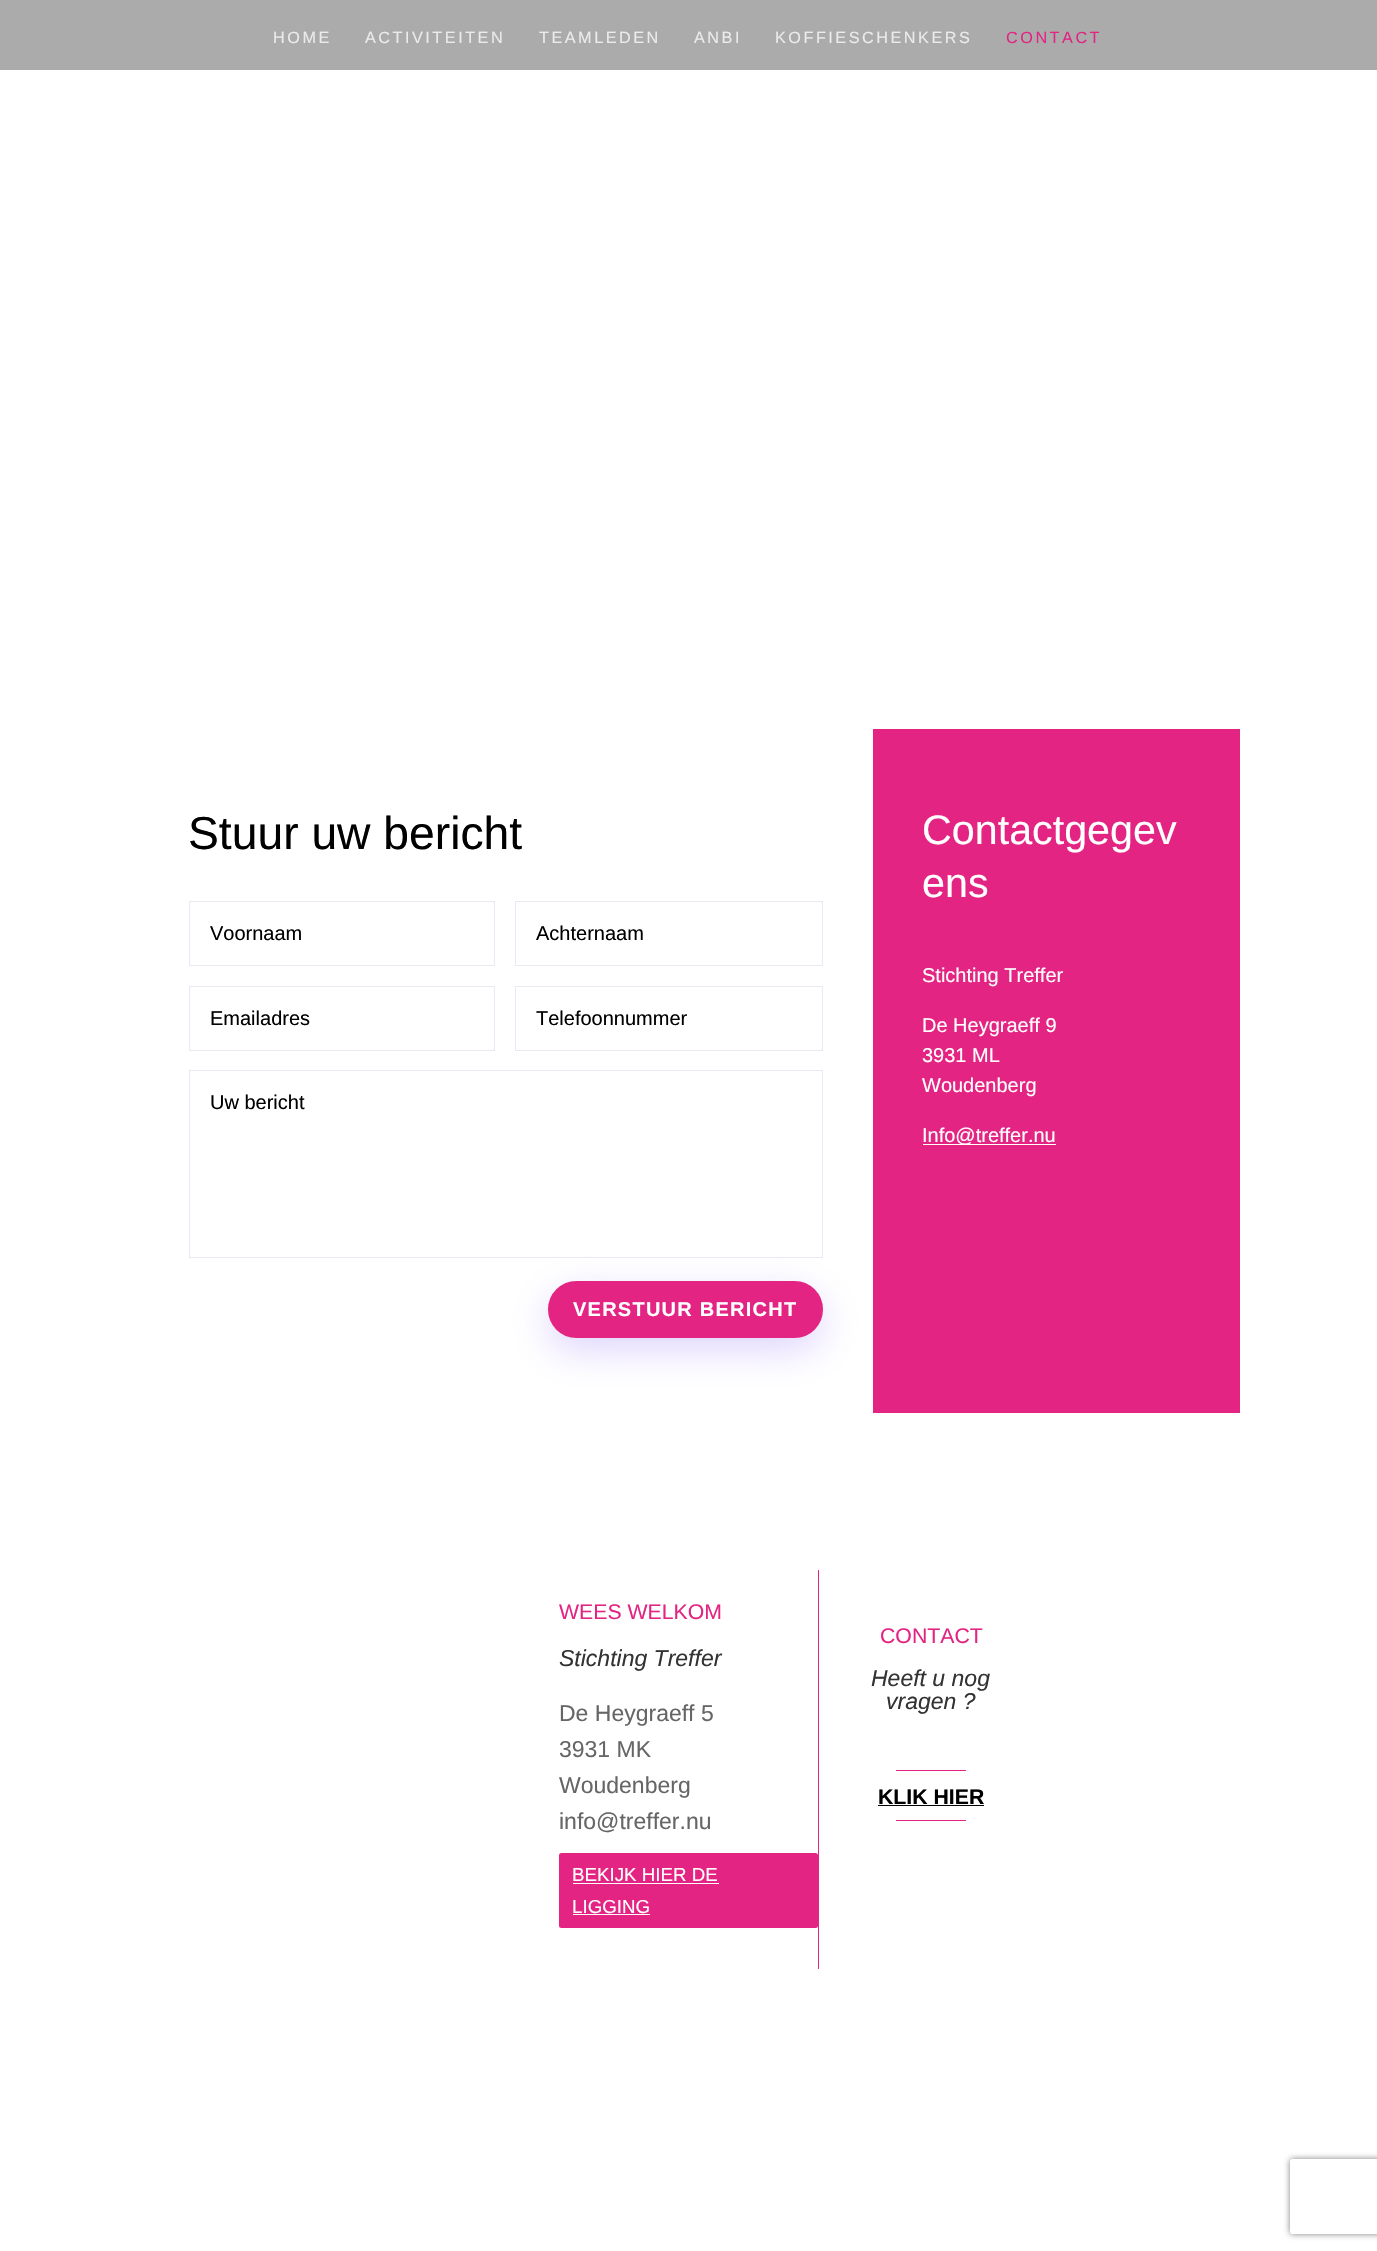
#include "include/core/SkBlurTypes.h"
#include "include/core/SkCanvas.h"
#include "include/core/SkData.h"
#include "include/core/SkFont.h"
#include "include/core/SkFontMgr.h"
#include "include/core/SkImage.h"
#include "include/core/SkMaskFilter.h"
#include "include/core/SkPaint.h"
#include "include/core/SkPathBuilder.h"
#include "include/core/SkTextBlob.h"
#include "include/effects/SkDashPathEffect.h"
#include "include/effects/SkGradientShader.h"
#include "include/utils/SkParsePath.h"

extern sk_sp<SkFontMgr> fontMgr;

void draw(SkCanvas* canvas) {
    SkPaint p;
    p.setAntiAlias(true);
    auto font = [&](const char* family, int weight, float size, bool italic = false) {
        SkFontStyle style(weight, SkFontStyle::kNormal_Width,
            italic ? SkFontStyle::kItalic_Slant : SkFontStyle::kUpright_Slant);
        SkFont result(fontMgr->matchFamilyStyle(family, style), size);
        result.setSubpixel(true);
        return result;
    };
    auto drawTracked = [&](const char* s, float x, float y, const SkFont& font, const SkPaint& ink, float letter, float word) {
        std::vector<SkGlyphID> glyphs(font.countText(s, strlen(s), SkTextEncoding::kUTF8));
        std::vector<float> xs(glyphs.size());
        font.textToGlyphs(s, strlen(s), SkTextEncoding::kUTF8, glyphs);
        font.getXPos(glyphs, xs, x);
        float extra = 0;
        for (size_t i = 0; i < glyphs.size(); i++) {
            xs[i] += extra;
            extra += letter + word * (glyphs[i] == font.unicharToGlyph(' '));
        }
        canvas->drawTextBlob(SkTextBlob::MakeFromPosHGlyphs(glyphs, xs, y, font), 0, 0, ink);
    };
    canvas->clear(0xFFFFFFFF);
    p.setColor(0xFFABABAB);
    canvas->drawRect(SkRect::MakeLTRB(0, 0, 1377, 70), p);
    auto font1 = font("Liberation Sans", 400, 16.25f);
    p.setColor(0xFFEBEBEB);
    {
        const struct { const char* s; float x, y; } items[] = {
            {"HOME", 273, 43},
            {"ACTIVITEITEN", 365, 43},
            {"TEAMLEDEN", 539, 43},
            {"ANBI", 694, 43},
            {"KOFFIESCHENKERS", 775, 43},
        };
        for (auto [s, x, y] : items) {
            drawTracked(s, x, y, font1, p, 2.5f, 0);
        }
    }
    p.setColor(0xFFE32483);
    drawTracked("CONTACT", 1006, 43, font1, p, 2.5f, 0);
    auto font2 = font("Liberation Sans", 400, 46.25f);
    p.setColor(0xFF000000);
    canvas->drawString("Stuur uw bericht", 188, 849, font2, p);
    p.setStyle(SkPaint::kStroke_Style);
    p.setStrokeWidth(1);
    p.setColor(0xFFE9E9F6);
    canvas->drawRect(SkRect::MakeLTRB(189.5f, 901.5f, 494.5f, 965.5f), p);
    auto font3 = font("Liberation Sans", 400, 20);
    p.setStyle(SkPaint::kFill_Style);
    p.setColor(0xFF000000);
    canvas->drawString("Voornaam", 210, 940, font3, p);
    p.setStyle(SkPaint::kStroke_Style);
    p.setColor(0xFFE9E9F6);
    canvas->drawRect(SkRect::MakeLTRB(515.5f, 901.5f, 822.5f, 965.5f), p);
    p.setStyle(SkPaint::kFill_Style);
    p.setColor(0xFF000000);
    canvas->drawString("Achternaam", 536, 940, font3, p);
    p.setStyle(SkPaint::kStroke_Style);
    p.setColor(0xFFE9E9F6);
    canvas->drawRect(SkRect::MakeLTRB(189.5f, 986.5f, 494.5f, 1050.5f), p);
    p.setStyle(SkPaint::kFill_Style);
    p.setColor(0xFF000000);
    canvas->drawString("Emailadres", 210, 1025, font3, p);
    p.setStyle(SkPaint::kStroke_Style);
    p.setColor(0xFFE9E9F6);
    canvas->drawRect(SkRect::MakeLTRB(515.5f, 986.5f, 822.5f, 1050.5f), p);
    p.setStyle(SkPaint::kFill_Style);
    p.setColor(0xFF000000);
    canvas->drawString("Telefoonnummer", 536, 1025, font3, p);
    p.setStyle(SkPaint::kStroke_Style);
    p.setColor(0xFFE9E9F6);
    canvas->drawRect(SkRect::MakeLTRB(189.5f, 1070.5f, 822.5f, 1257.5f), p);
    p.setStyle(SkPaint::kFill_Style);
    p.setColor(0xFF000000);
    canvas->drawString("Uw bericht", 210, 1109, font3, p);
    p.setColor(0x4D9271F6);
    p.setMaskFilter(SkMaskFilter::MakeBlur(kNormal_SkBlurStyle, 19));
    canvas->drawRoundRect(SkRect::MakeLTRB(548, 1294, 823, 1350), 28, 28, p);
    p.setMaskFilter(nullptr);
    p.setColor(0xFFE32483);
    canvas->drawRoundRect(SkRect::MakeLTRB(550.5f, 1283.5f, 820.5f, 1335.5f), 26, 26, p);
    p.setStyle(SkPaint::kStroke_Style);
    p.setStrokeWidth(5);
    canvas->drawRoundRect(SkRect::MakeLTRB(550.5f, 1283.5f, 820.5f, 1335.5f), 26, 26, p);
    auto font4 = font("Liberation Sans", 700, 20);
    p.setStyle(SkPaint::kFill_Style);
    p.setColor(0xFFFFFFFF);
    drawTracked("VERSTUUR BERICHT", 573, 1316, font4, p, 1.25f, 0);
    p.setColor(0xFFE32483);
    canvas->drawRect(SkRect::MakeLTRB(873, 729, 1240, 1413), p);
    auto font5 = font("Liberation Sans", 400, 41.25f);
    p.setColor(0xFFFFFFFF);
    canvas->drawString("Contactgegev", 922, 844, font5, p);
    canvas->drawString("ens", 922, 897, font5, p);
    {
        const struct { const char* s; float x, y; } items[] = {
            {"Stichting Treffer", 922, 982},
            {"De Heygraeff 9", 922, 1032},
            {"3931 ML", 922, 1062},
            {"Woudenberg", 922, 1092},
        };
        for (auto [s, x, y] : items) {
            canvas->drawString(s, x, y, font3, p);
        }
    }
    canvas->drawRect(SkRect::MakeLTRB(923, 1144, 1056, 1145), p);
    canvas->drawString("Info@treffer.nu", 922, 1142, font3, p);
    p.setColor(0xFFE32483);
    canvas->drawRect(SkRect::MakeLTRB(818, 1570, 819, 1969), p);
    auto font6 = font("Liberation Sans", 400, 21.25f);
    canvas->drawString("WEES WELKOM", 559, 1619, font6, p);
    auto font7 = font("Liberation Sans", 400, 23, true);
    p.setColor(0xFF333333);
    canvas->drawString("Stichting Treffer", 559, 1666, font7, p);
    auto font8 = font("Liberation Sans", 400, 23);
    p.setColor(0xFF666666);
    {
        const struct { const char* s; float x, y; } items[] = {
            {"De Heygraeff 5", 559, 1721},
            {"3931 MK", 559, 1757},
            {"Woudenberg", 559, 1793},
            {"info@treffer.nu", 559, 1829},
        };
        for (auto [s, x, y] : items) {
            canvas->drawString(s, x, y, font8, p);
        }
    }
    p.setColor(0xFFE32483);
    canvas->drawRoundRect(SkRect::MakeLTRB(559, 1853, 818, 1928), 2.5f, 2.5f, p);
    auto font9 = font("Liberation Sans", 400, 18.75f);
    p.setColor(0xFFFFFFFF);
    canvas->drawString("BEKIJK HIER DE", 572, 1881, font9, p);
    canvas->drawRect(SkRect::MakeLTRB(573, 1883, 719, 1884), p);
    canvas->drawString("LIGGING", 572, 1913, font9, p);
    canvas->drawRect(SkRect::MakeLTRB(573, 1914, 650, 1915), p);
    p.setColor(0xFFE32483);
    canvas->drawString("CONTACT", 880, 1643, font6, p);
    p.setColor(0xFF333333);
    canvas->drawString("Heeft u nog", 871, 1686, font7, p);
    canvas->drawString("vragen ?", 886, 1709, font7, p);
    p.setColor(0xFFE32483);
    canvas->drawRect(SkRect::MakeLTRB(896, 1770, 966, 1771), p);
    auto font10 = font("Liberation Sans", 700, 21.25f);
    p.setColor(0xFF000000);
    canvas->drawString("KLIK HIER", 878, 1804, font10, p);
    canvas->drawRect(SkRect::MakeLTRB(878, 1805, 984, 1806), p);
    p.setColor(0xFFE32483);
    canvas->drawRect(SkRect::MakeLTRB(896, 1820, 966, 1821), p);
    canvas->save();
    canvas->clipPath(SkPathBuilder(SkPathFillType::kEvenOdd).moveTo(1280, 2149).lineTo(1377, 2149).lineTo(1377, 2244).lineTo(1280, 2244).close().moveTo(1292.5f, 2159).lineTo(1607.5f, 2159).cubicTo(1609, 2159, 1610, 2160, 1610, 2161.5f).lineTo(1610, 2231.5f).cubicTo(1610, 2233, 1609, 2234, 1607.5f, 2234).lineTo(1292.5f, 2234).cubicTo(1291, 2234, 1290, 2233, 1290, 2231.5f).lineTo(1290, 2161.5f).cubicTo(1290, 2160, 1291, 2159, 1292.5f, 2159).close().detach(), true);
    p.setColor(0xFF808080);
    p.setMaskFilter(SkMaskFilter::MakeBlur(kNormal_SkBlurStyle, 3));
    canvas->drawRoundRect(SkRect::MakeLTRB(1290, 2159, 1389, 2234), 2.5f, 2.5f, p);
    p.setMaskFilter(nullptr);
    canvas->restore();
}
